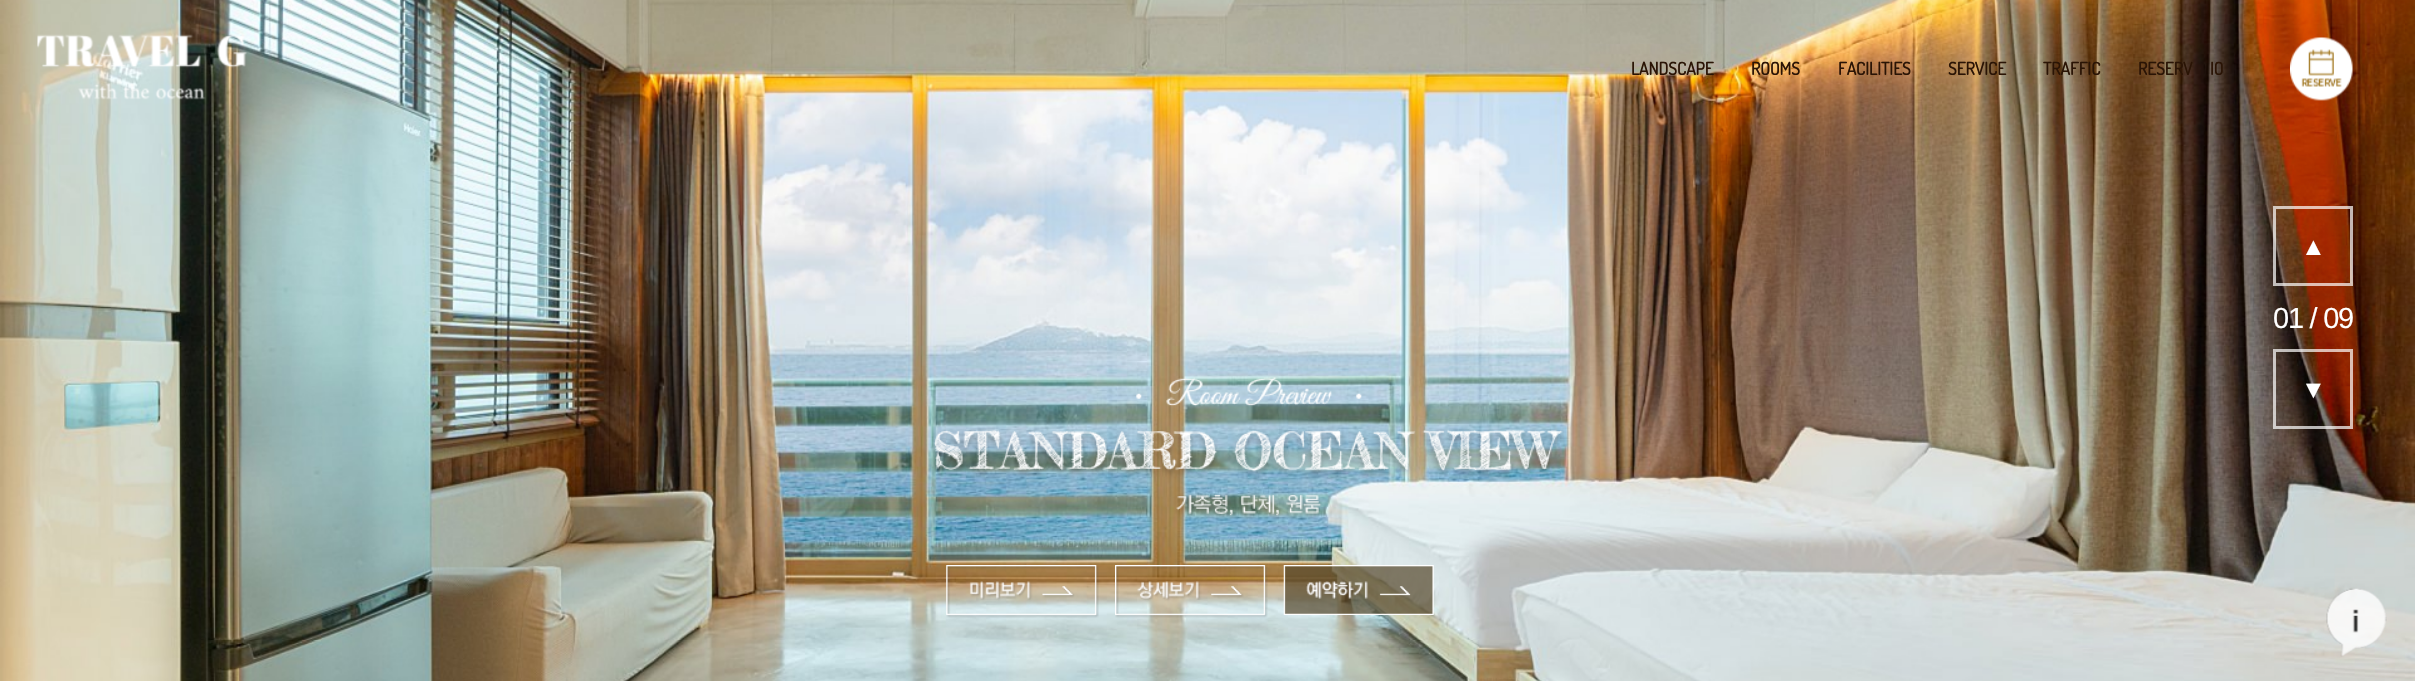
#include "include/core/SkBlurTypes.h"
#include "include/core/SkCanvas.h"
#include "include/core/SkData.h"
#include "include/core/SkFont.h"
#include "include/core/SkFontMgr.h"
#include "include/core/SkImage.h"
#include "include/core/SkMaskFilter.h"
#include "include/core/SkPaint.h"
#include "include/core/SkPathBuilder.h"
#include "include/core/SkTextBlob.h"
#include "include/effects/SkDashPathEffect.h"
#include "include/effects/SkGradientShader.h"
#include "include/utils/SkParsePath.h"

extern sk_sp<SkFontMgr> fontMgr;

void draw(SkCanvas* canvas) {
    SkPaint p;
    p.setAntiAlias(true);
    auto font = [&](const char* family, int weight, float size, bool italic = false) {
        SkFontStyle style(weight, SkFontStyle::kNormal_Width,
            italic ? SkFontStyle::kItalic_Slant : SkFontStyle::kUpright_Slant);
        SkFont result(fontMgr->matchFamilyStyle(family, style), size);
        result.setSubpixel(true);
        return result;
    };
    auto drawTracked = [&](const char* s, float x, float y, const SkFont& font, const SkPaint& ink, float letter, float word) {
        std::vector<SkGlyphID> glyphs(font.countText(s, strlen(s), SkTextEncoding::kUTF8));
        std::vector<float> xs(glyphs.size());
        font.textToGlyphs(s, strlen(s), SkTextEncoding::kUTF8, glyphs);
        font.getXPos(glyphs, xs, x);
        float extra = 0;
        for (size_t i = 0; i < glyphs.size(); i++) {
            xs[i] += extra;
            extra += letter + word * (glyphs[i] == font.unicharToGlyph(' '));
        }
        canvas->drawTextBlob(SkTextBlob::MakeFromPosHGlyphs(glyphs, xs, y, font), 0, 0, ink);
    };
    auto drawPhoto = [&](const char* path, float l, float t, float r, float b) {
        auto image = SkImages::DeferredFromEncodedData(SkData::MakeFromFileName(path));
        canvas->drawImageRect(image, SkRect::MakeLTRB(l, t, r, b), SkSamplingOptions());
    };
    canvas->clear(0xFFFFFFFF);
    drawPhoto("media/3.png", 0, 0, 2415, 681);
    drawPhoto("media/1.png", 37, 34, 247, 100);
    auto font1 = font("Dosis", 700, 17.5f);
    p.setColor(0xFF2A1405);
    {
        const struct { const char* s; float x, y; } items[] = {
            {"LANDSCAPE", 1631, 75},
            {"ROOMS", 1751, 75},
            {"FACILITIES", 1838, 75},
            {"SERVICE", 1948, 75},
            {"TRAFFIC", 2043, 75},
            {"RESERV", 2138, 75},
            {"IO", 2210, 75},
        };
        for (auto [s, x, y] : items) {
            canvas->drawString(s, x, y, font1, p);
        }
    }
    drawPhoto("media/2.png", 2290, 37, 2353, 101);
    p.setStyle(SkPaint::kStroke_Style);
    p.setStrokeWidth(3);
    p.setColor(0xB3FFFFFF);
    canvas->drawRect(SkRect::MakeLTRB(2274.5f, 207.5f, 2351.5f, 284.5f), p);
    auto font2 = font("Liberation Sans", 400, 25);
    p.setStyle(SkPaint::kFill_Style);
    p.setColor(0xFFFFFFFF);
    drawTracked("▲", 2301, 255, font2, p, -1.25f, 0);
    auto font3 = font("Liberation Sans", 400, 29);
    drawTracked("01 / 09", 2273, 328, font3, p, -1.25f, 0);
    p.setStyle(SkPaint::kStroke_Style);
    p.setColor(0xB3FFFFFF);
    canvas->drawRect(SkRect::MakeLTRB(2274.5f, 350.5f, 2351.5f, 427.5f), p);
    p.setStyle(SkPaint::kFill_Style);
    p.setColor(0xFFFFFFFF);
    drawTracked("▼", 2301, 398, font2, p, -1.25f, 0);
    drawPhoto("media/4.png", 930, 377, 1564, 519);
    drawPhoto("media/5.png", 946, 565, 1099, 618);
    drawPhoto("media/6.png", 1115, 565, 1268, 618);
    drawPhoto("media/7.png", 1283, 565, 1434, 615);
    drawPhoto("media/8.png", 2326, 588, 2387, 657);
}
